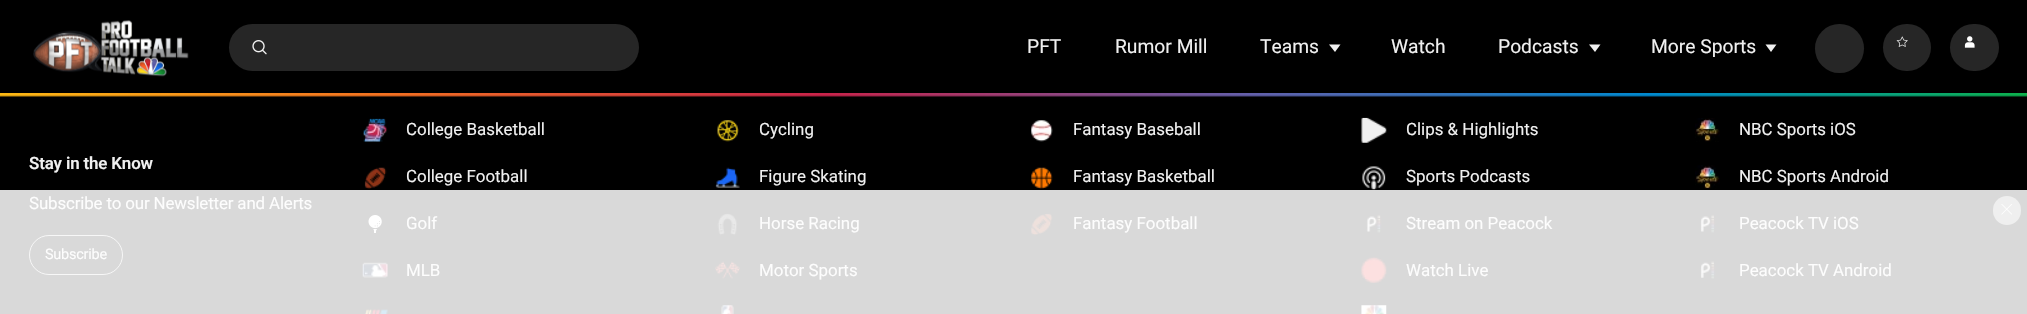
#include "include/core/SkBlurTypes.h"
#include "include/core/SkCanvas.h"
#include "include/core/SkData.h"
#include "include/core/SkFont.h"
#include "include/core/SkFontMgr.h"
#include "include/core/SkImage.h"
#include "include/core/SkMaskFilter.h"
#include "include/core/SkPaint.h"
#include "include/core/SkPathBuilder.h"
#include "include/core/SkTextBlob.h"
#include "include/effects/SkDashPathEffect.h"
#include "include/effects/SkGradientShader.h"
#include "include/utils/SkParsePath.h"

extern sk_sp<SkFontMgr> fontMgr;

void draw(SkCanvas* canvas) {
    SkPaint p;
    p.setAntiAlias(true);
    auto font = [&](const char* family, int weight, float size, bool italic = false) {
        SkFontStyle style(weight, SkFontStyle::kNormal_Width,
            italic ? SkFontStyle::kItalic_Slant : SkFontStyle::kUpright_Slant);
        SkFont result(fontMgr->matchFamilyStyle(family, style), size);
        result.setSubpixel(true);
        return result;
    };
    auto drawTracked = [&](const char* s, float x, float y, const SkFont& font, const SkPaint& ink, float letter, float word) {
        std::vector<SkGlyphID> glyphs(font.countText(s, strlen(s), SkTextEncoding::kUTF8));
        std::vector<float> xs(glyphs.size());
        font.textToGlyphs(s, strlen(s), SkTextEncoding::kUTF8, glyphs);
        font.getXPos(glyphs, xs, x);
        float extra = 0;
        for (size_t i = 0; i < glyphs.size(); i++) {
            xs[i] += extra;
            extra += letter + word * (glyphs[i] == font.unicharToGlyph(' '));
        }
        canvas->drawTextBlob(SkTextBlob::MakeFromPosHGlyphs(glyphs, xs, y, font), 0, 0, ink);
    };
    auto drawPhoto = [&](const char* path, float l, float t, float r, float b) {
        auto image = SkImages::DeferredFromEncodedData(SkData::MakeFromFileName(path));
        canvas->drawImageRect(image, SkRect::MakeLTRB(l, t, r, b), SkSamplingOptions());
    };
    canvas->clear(0xFF000000);
    drawPhoto("media/1.png", 33, 20, 189, 77);
    p.setColor(0xFF262626);
    canvas->drawRoundRect(SkRect::MakeLTRB(229, 24, 639, 71), 23.5f, 23.5f, p);
    drawPhoto("media/2.png", 252, 40, 267, 55);
    auto font1 = font("Roboto", 400, 19.25f);
    p.setColor(0xFFF0F0F0);
    {
        const struct { const char* s; float x, y; } items[] = {
            {"PFT", 1027, 53},
            {"Rumor Mill", 1115, 53},
            {"Teams", 1260, 53},
        };
        for (auto [s, x, y] : items) {
            canvas->drawString(s, x, y, font1, p);
        }
    }
    canvas->drawPath(SkPathBuilder().moveTo(1335, 52).lineTo(1329, 44.5f).lineTo(1340.5f, 44.5f).close().detach(), p);
    canvas->drawString("Watch", 1391, 53, font1, p);
    canvas->drawString("Podcasts", 1498, 53, font1, p);
    canvas->drawPath(SkPathBuilder().moveTo(1595, 52).lineTo(1589, 44.5f).lineTo(1600.5f, 44.5f).close().detach(), p);
    canvas->drawString("More Sports", 1651, 53, font1, p);
    canvas->drawPath(SkPathBuilder().moveTo(1771, 52).lineTo(1765.5f, 44.5f).lineTo(1776.5f, 44.5f).close().detach(), p);
    p.setColor(0xFF262626);
    canvas->drawCircle(1839.5f, 48.5f, 24.5f, p);
    canvas->drawRoundRect(SkRect::MakeLTRB(1883, 24, 1931, 71), 23.5f, 23.5f, p);
    drawPhoto("media/3.png", 1896, 36, 1908, 47);
    canvas->drawRoundRect(SkRect::MakeLTRB(1950, 24, 1999, 71), 23.5f, 23.5f, p);
    drawPhoto("media/4.png", 1964, 36, 1975, 48);
    drawPhoto("media/5.png", 0, 93, 2027, 97);
    p.setColor(0xFFD9D9D9);
    canvas->drawRect(SkRect::MakeLTRB(0, 190, 2027, 314), p);
    auto font2 = font("Roboto", 600, 16.9f);
    p.setColor(0xFFF0F0F0);
    drawTracked("Stay in the Know", 29, 169, font2, p, -0.15f, 0);
    auto font3 = font("Roboto", 400, 16.9f);
    p.setColor(0xFFFDFDFD);
    drawTracked("Subscribe to our Newsletter and Alerts", 29, 209, font3, p, -0.15f, 0);
    p.setStyle(SkPaint::kStroke_Style);
    p.setStrokeWidth(1);
    p.setColor(0xFFF7F7F7);
    canvas->drawRoundRect(SkRect::MakeLTRB(29.5f, 235.5f, 122.5f, 274.5f), 19.5f, 19.5f, p);
    auto font4 = font("Roboto", 400, 14.5f);
    p.setStyle(SkPaint::kFill_Style);
    p.setColor(0xFFFDFDFD);
    drawTracked("Subscribe", 45, 259, font4, p, -0.25f, 0);
    drawPhoto("media/6.png", 363, 118, 388, 142);
    p.setColor(0xFFF0F0F0);
    canvas->drawString("College Basketball", 406, 135, font3, p);
    drawPhoto("media/7.png", 717, 120, 739, 142);
    canvas->drawString("Cycling", 759, 135, font3, p);
    drawPhoto("media/8.png", 364, 167, 387, 189);
    canvas->drawString("College Football", 406, 182, font3, p);
    drawPhoto("media/9.png", 715, 167, 740, 188);
    canvas->drawString("Figure Skating", 759, 182, font3, p);
    drawPhoto("media/10.png", 368, 215, 382, 233);
    p.setColor(0xFFFDFDFD);
    canvas->drawString("Golf", 406, 229, font3, p);
    drawPhoto("media/11.png", 717, 213, 738, 236);
    canvas->drawString("Horse Racing", 759, 229, font3, p);
    drawPhoto("media/12.png", 362, 262, 388, 278);
    canvas->drawString("MLB", 406, 276, font3, p);
    drawPhoto("media/13.png", 715, 261, 740, 279);
    canvas->drawString("Motor Sports", 759, 276, font3, p);
    drawPhoto("media/14.png", 365, 309, 388, 314);
    drawPhoto("media/15.png", 721, 305, 734, 314);
    drawPhoto("media/16.png", 1031, 120, 1053, 142);
    p.setColor(0xFFF0F0F0);
    canvas->drawString("Fantasy Baseball", 1073, 135, font3, p);
    drawPhoto("media/17.png", 1031, 167, 1053, 189);
    canvas->drawString("Fantasy Basketball", 1073, 182, font3, p);
    drawPhoto("media/18.png", 1031, 213, 1053, 236);
    p.setColor(0xFFFDFDFD);
    canvas->drawString("Fantasy Football", 1073, 229, font3, p);
    drawPhoto("media/19.png", 1361, 117, 1387, 143);
    p.setColor(0xFFF0F0F0);
    canvas->drawString("Clips & Highlights", 1406, 135, font3, p);
    drawPhoto("media/20.png", 1362, 166, 1386, 190);
    canvas->drawString("Sports Podcasts", 1406, 182, font3, p);
    drawPhoto("media/21.png", 1366, 214, 1382, 233);
    p.setColor(0xFFFDFDFD);
    canvas->drawString("Stream on Peacock", 1406, 229, font3, p);
    drawPhoto("media/22.png", 1361, 257, 1387, 283);
    canvas->drawString("Watch Live", 1406, 276, font3, p);
    drawPhoto("media/23.png", 1361, 305, 1387, 314);
    drawPhoto("media/24.png", 1695, 118, 1720, 142);
    p.setColor(0xFFF0F0F0);
    canvas->drawString("NBC Sports iOS", 1739, 135, font3, p);
    drawPhoto("media/25.png", 1695, 165, 1720, 189);
    canvas->drawString("NBC Sports Android", 1739, 182, font3, p);
    drawPhoto("media/26.png", 1700, 214, 1716, 233);
    p.setColor(0xFFFDFDFD);
    canvas->drawString("Peacock TV iOS", 1739, 229, font3, p);
    drawPhoto("media/27.png", 1700, 258, 1716, 279);
    canvas->drawString("Peacock TV Android", 1739, 276, font3, p);
    canvas->save();
    canvas->clipRect(SkRect::MakeLTRB(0, 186, 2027, 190));
    p.setColor(0x14000000);
    p.setMaskFilter(SkMaskFilter::MakeBlur(kNormal_SkBlurStyle, 2.5f));
    canvas->drawRect(SkRect::MakeLTRB(0, 188, 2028, 313), p);
    p.setMaskFilter(nullptr);
    canvas->restore();
    p.setColor(0xFFEFEFEF);
    canvas->drawRoundRect(SkRect::MakeLTRB(1993, 196, 2021, 225), 14, 14, p);
    drawPhoto("media/28.png", 2001, 204, 2012, 215);
}
